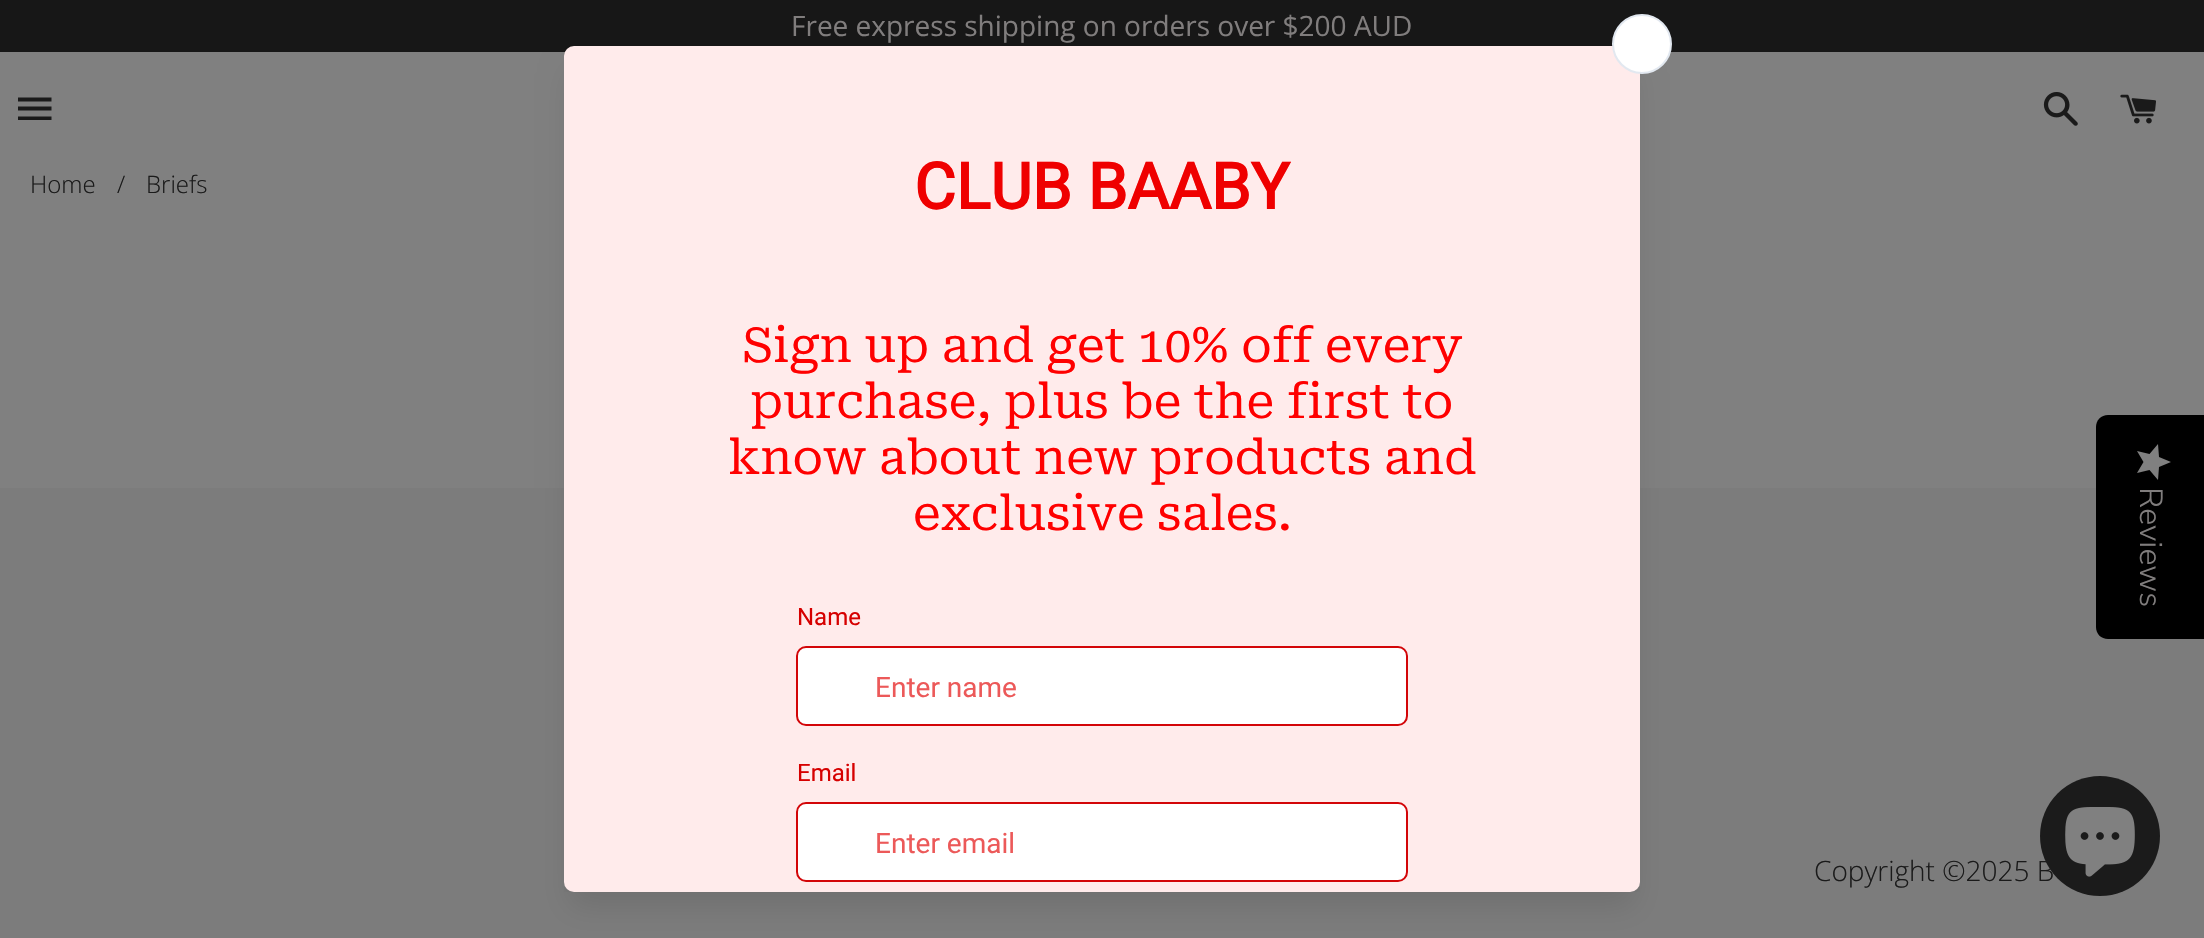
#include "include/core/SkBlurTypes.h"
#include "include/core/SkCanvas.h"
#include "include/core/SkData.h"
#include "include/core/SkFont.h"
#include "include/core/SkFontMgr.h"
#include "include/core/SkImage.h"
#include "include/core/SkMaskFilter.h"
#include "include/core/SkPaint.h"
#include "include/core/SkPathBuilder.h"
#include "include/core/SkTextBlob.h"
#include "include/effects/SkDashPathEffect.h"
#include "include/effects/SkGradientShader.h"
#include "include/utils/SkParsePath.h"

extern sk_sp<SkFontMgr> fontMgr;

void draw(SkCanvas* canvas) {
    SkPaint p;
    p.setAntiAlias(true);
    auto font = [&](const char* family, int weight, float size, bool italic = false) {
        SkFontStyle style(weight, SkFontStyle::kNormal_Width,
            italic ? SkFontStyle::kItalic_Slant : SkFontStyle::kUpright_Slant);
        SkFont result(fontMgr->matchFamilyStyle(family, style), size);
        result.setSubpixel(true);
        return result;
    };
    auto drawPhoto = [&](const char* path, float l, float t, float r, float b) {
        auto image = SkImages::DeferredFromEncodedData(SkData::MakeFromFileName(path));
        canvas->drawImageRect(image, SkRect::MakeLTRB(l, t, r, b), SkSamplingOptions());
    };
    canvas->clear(0xFF808080);
    p.setColor(0xFF171717);
    canvas->drawRect(SkRect::MakeLTRB(0, 0, 2204, 52), p);
    auto font1 = font("Open Sans", 400, 28);
    p.setColor(0xFF807D7D);
    canvas->drawString("Free express shipping on orders over $200 AUD", 791, 36, font1, p);
    p.setColor(0xFF1A1A1A);
    canvas->drawPath(SkPathBuilder().moveTo(18, 97.5f).lineTo(51.5f, 97.5f).lineTo(51.5f, 101.5f).lineTo(18, 101.5f).close().moveTo(18, 106.5f).lineTo(51.5f, 106.5f).lineTo(51.5f, 110.5f).lineTo(18, 110.5f).close().moveTo(18, 116.5f).lineTo(51.5f, 116.5f).lineTo(51.5f, 120).lineTo(18, 120).close().detach(), p);
    drawPhoto("media/1.png", 2043, 92, 2078, 126);
    drawPhoto("media/2.png", 2120, 94, 2156, 124);
    auto font2 = font("Open Sans", 300, 24);
    {
        const struct { const char* s; float x, y; } items[] = {
            {"Home", 30, 193},
            {"/", 117, 193},
            {"Briefs", 146, 193},
        };
        for (auto [s, x, y] : items) {
            canvas->drawString(s, x, y, font2, p);
        }
    }
    p.setColor(0xFF7C7C7C);
    canvas->drawRect(SkRect::MakeLTRB(0, 488, 2204, 938), p);
    auto font3 = font("Open Sans", 300, 28);
    p.setColor(0xFF1A1A1A);
    canvas->drawString("Copyright ©2025 B", 1814, 881, font3, p);
    p.setColor(0x1A000000);
    p.setMaskFilter(SkMaskFilter::MakeBlur(kNormal_SkBlurStyle, 15));
    canvas->drawRoundRect(SkRect::MakeLTRB(570, 72, 1634, 906), 4, 4, p);
    p.setMaskFilter(nullptr);
    canvas->save();
    canvas->clipRect(SkRect::MakeLTRB(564, 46, 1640, 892));
    p.setColor(0x1F000000);
    p.setMaskFilter(SkMaskFilter::MakeBlur(kNormal_SkBlurStyle, 20));
    canvas->drawRoundRect(SkRect::MakeLTRB(570, 52, 1634, 886), 4, 4, p);
    p.setMaskFilter(nullptr);
    canvas->restore();
    p.setColor(0xFFFFEBEB);
    canvas->drawRoundRect(SkRect::MakeLTRB(564, 46, 1640, 892), 10, 10, p);
    p.setColor(0xFFFFFFFF);
    canvas->drawCircle(1642, 44, 29, p);
    p.setStyle(SkPaint::kStroke_Style);
    p.setStrokeWidth(2);
    p.setColor(0xFFE2E8F0);
    canvas->drawCircle(1642, 44, 29, p);
    auto font4 = font("Roboto", 700, 64);
    p.setStyle(SkPaint::kFill_Style);
    p.setColor(0xFFEF0000);
    canvas->drawString("CLUB BAABY", 914, 209, font4, p);
    auto font5 = font("Roboto Serif", 400, 48);
    p.setColor(0xFFFF0000);
    {
        const struct { const char* s; float x, y; } items[] = {
            {"Sign up and get 10% off every", 742, 362},
            {"purchase, plus be the first to", 750, 418},
            {"know about new products and", 728, 474},
            {"exclusive sales.", 913, 530},
        };
        for (auto [s, x, y] : items) {
            canvas->drawString(s, x, y, font5, p);
        }
    }
    auto font6 = font("Roboto", 400, 24);
    p.setColor(0xFFD60000);
    canvas->drawString("Name", 797, 625, font6, p);
    p.setColor(0xFFFFFFFF);
    canvas->drawRoundRect(SkRect::MakeLTRB(797, 647, 1407, 725), 9, 9, p);
    p.setStyle(SkPaint::kStroke_Style);
    p.setColor(0xFFD30508);
    canvas->drawRoundRect(SkRect::MakeLTRB(797, 647, 1407, 725), 9, 9, p);
    auto font7 = font("Roboto", 400, 28);
    p.setStyle(SkPaint::kFill_Style);
    p.setColor(0xFFEC5959);
    canvas->drawString("Enter name", 875, 697, font7, p);
    p.setColor(0xFFD60000);
    canvas->drawString("Email", 797, 781, font6, p);
    p.setColor(0xFFFFFFFF);
    canvas->drawRoundRect(SkRect::MakeLTRB(797, 803, 1407, 881), 9, 9, p);
    p.setStyle(SkPaint::kStroke_Style);
    p.setColor(0xFFD30508);
    canvas->drawRoundRect(SkRect::MakeLTRB(797, 803, 1407, 881), 9, 9, p);
    p.setStyle(SkPaint::kFill_Style);
    p.setColor(0xFFEC5959);
    canvas->drawString("Enter email", 875, 853, font7, p);
    p.setColor(0xFF000000);
    canvas->drawPath(SkPathBuilder().moveTo(2204, 415).lineTo(2204, 639).lineTo(2108, 639).cubicTo(2101, 639, 2096, 634, 2096, 627).lineTo(2096, 427).cubicTo(2096, 420, 2101, 415, 2108, 415).close().detach(), p);
    {
        const SkColor colors[] = {0xFF808080, 0xFF757575};
        const float stops[] = {1, 1};
        const SkPoint ends[] = {{2171, 444}, {2171, 480}};
        p.setShader(SkGradientShader::MakeLinear(ends, colors, stops, 2, SkTileMode::kClamp));
        p.setAlpha(255);
    }
    canvas->drawPath(SkPathBuilder().moveTo(2143.5f, 462).lineTo(2137, 473).lineTo(2149.5f, 470).lineTo(2158, 480).lineTo(2159, 467).lineTo(2171, 462).lineTo(2159, 457).lineTo(2158, 444).lineTo(2149.5f, 454).lineTo(2137, 451).close().detach(), p);
    auto font8 = font("Nunito Sans", 300, 32);
    p.setShader(nullptr);
    p.setColor(0xFF807D7D);
    canvas->save();
    canvas->rotate(90, 2140, 487);
    canvas->drawString("Reviews", 2140, 487, font8, p);
    canvas->restore();
    p.setColor(0xFF1B1B1B);
    canvas->drawCircle(2100, 836, 60, p);
    drawPhoto("media/3.png", 2065, 807, 2135, 877);
}
